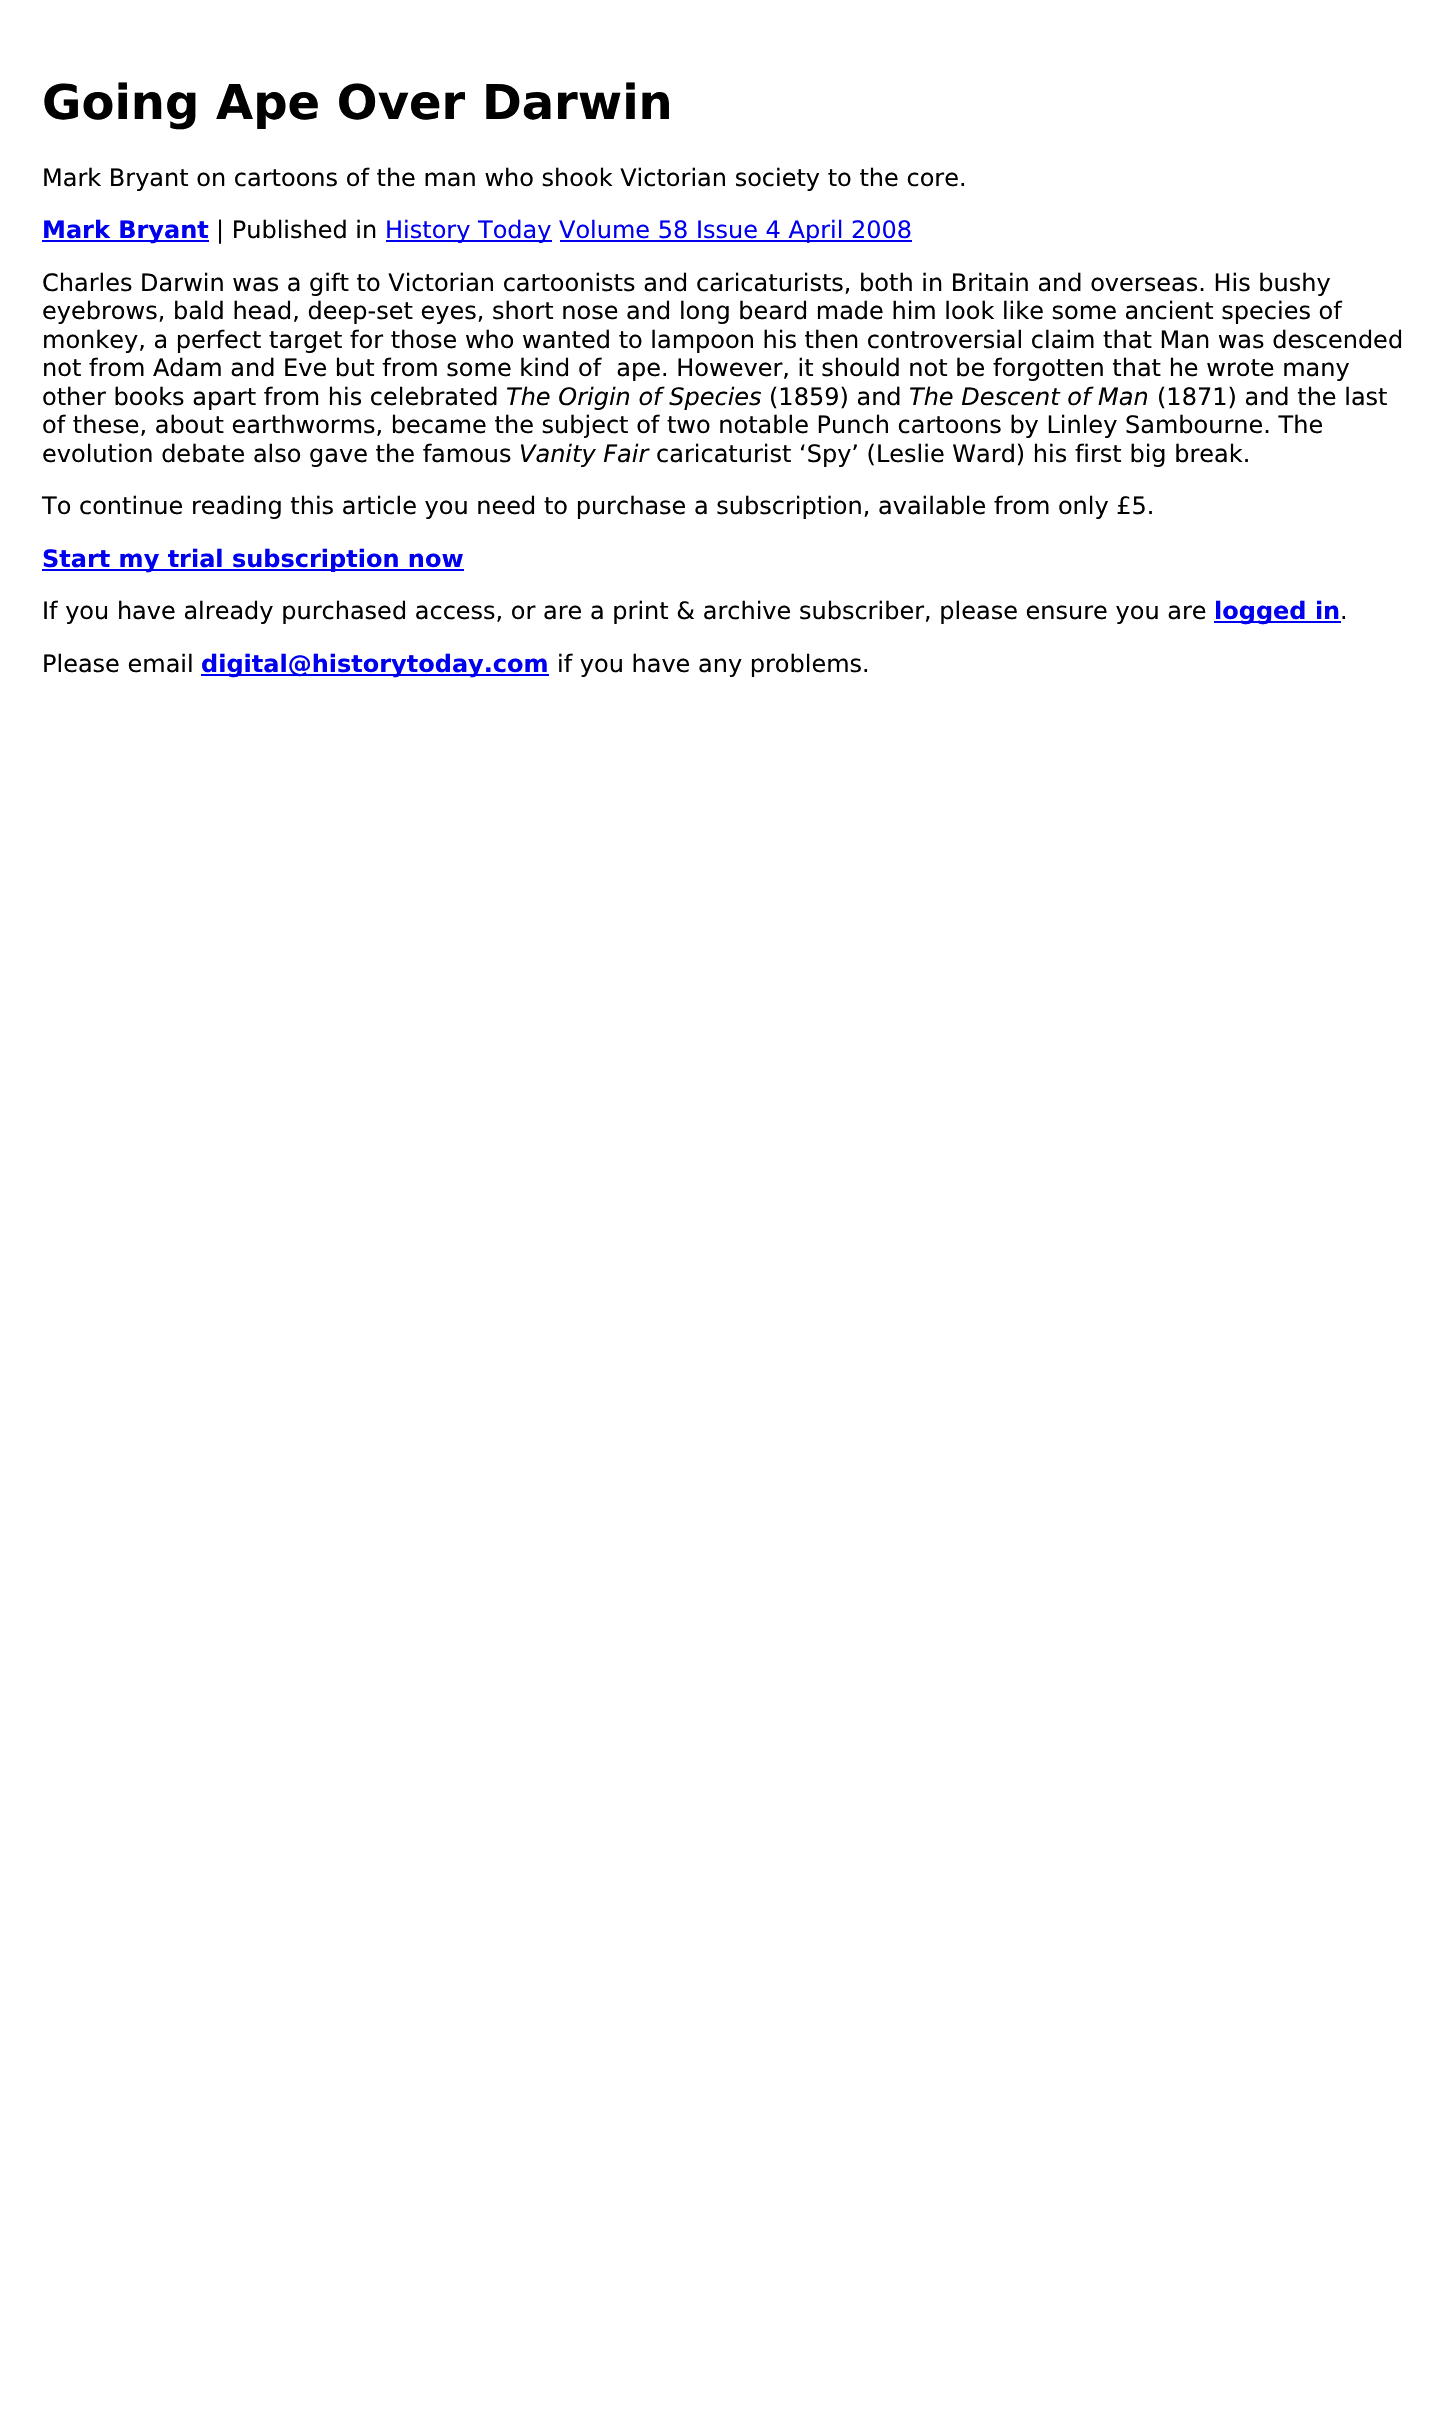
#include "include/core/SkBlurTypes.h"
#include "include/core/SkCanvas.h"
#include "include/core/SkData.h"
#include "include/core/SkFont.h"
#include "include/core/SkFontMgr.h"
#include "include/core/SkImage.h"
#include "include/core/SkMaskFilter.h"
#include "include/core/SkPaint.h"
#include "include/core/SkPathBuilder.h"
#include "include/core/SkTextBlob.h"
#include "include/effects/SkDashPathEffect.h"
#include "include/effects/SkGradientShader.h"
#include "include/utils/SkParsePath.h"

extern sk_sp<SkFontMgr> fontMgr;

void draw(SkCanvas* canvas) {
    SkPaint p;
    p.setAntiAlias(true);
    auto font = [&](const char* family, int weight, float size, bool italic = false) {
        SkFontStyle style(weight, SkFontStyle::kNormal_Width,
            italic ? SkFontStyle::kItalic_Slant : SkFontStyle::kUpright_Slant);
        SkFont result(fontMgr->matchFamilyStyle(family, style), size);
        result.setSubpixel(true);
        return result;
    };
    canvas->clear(0xFFFFFFFF);
    auto font1 = font("DejaVu Sans", 700, 48);
    p.setColor(0xFF000000);
    canvas->drawString("Going Ape Over Darwin", 42, 119, font1, p);
    auto font2 = font("DejaVu Sans", 400, 24);
    canvas->drawString("Mark Bryant on cartoons of the man who shook Victorian society to the core.", 42, 186, font2, p);
    p.setColor(0xFF0000EE);
    canvas->drawRect(SkRect::MakeLTRB(42, 240, 209, 242), p);
    auto font3 = font("DejaVu Sans", 700, 24);
    canvas->drawString("Mark Bryant", 42, 238, font3, p);
    p.setColor(0xFF000000);
    canvas->drawString("| Published in", 216, 238, font2, p);
    p.setColor(0xFF0000EE);
    canvas->drawRect(SkRect::MakeLTRB(386, 240, 552, 242), p);
    canvas->drawString("History Today", 385, 238, font2, p);
    canvas->drawRect(SkRect::MakeLTRB(560, 240, 912, 242), p);
    canvas->drawString("Volume 58 Issue 4 April 2008", 559, 238, font2, p);
    p.setColor(0xFF000000);
    {
        const struct { const char* s; float x, y; } items[] = {
            {"Charles Darwin was a gift to Victorian cartoonists and caricaturists, both in Britain and overseas. His bushy", 42, 291},
            {"eyebrows, bald head, deep-set eyes, short nose and long beard made him look like some ancient species of", 42, 319},
            {"monkey, a perfect target for those who wanted to lampoon his then controversial claim that Man was descended", 42, 348},
            {"not from Adam and Eve but from some kind of  ape. However, it should not be forgotten that he wrote many", 42, 376},
            {"other books apart from his celebrated", 42, 405},
        };
        for (auto [s, x, y] : items) {
            canvas->drawString(s, x, y, font2, p);
        }
    }
    auto font4 = font("DejaVu Sans", 400, 24, true);
    canvas->drawString("The Origin of Species", 506, 405, font4, p);
    canvas->drawString("(1859) and", 769, 405, font2, p);
    canvas->drawString("The Descent of Man", 909, 405, font4, p);
    {
        const struct { const char* s; float x, y; } items[] = {
            {"(1871) and the last", 1157, 405},
            {"of these, about earthworms, became the subject of two notable Punch cartoons by Linley Sambourne. The", 42, 433},
            {"evolution debate also gave the famous", 42, 462},
        };
        for (auto [s, x, y] : items) {
            canvas->drawString(s, x, y, font2, p);
        }
    }
    canvas->drawString("Vanity Fair", 519, 462, font4, p);
    canvas->drawString("caricaturist ‘Spy’ (Leslie Ward) his first big break.", 656, 462, font2, p);
    canvas->drawString("To continue reading this article you need to purchase a subscription, available from only £5.", 42, 514, font2, p);
    p.setColor(0xFF0000EE);
    canvas->drawRect(SkRect::MakeLTRB(42, 569, 464, 571), p);
    canvas->drawString("Start my trial subscription now", 42, 567, font3, p);
    p.setColor(0xFF000000);
    canvas->drawString("If you have already purchased access, or are a print & archive subscriber, please ensure you are", 42, 619, font2, p);
    p.setColor(0xFF0000EE);
    canvas->drawRect(SkRect::MakeLTRB(1214, 621, 1341, 623), p);
    canvas->drawString("logged in", 1214, 619, font3, p);
    p.setColor(0xFF000000);
    canvas->drawString(".", 1340, 619, font2, p);
    canvas->drawString("Please email", 42, 672, font2, p);
    p.setColor(0xFF0000EE);
    canvas->drawRect(SkRect::MakeLTRB(201, 674, 549, 676), p);
    canvas->drawString("digital@historytoday.com", 201, 672, font3, p);
    p.setColor(0xFF000000);
    canvas->drawString("if you have any problems.", 557, 672, font2, p);
}
